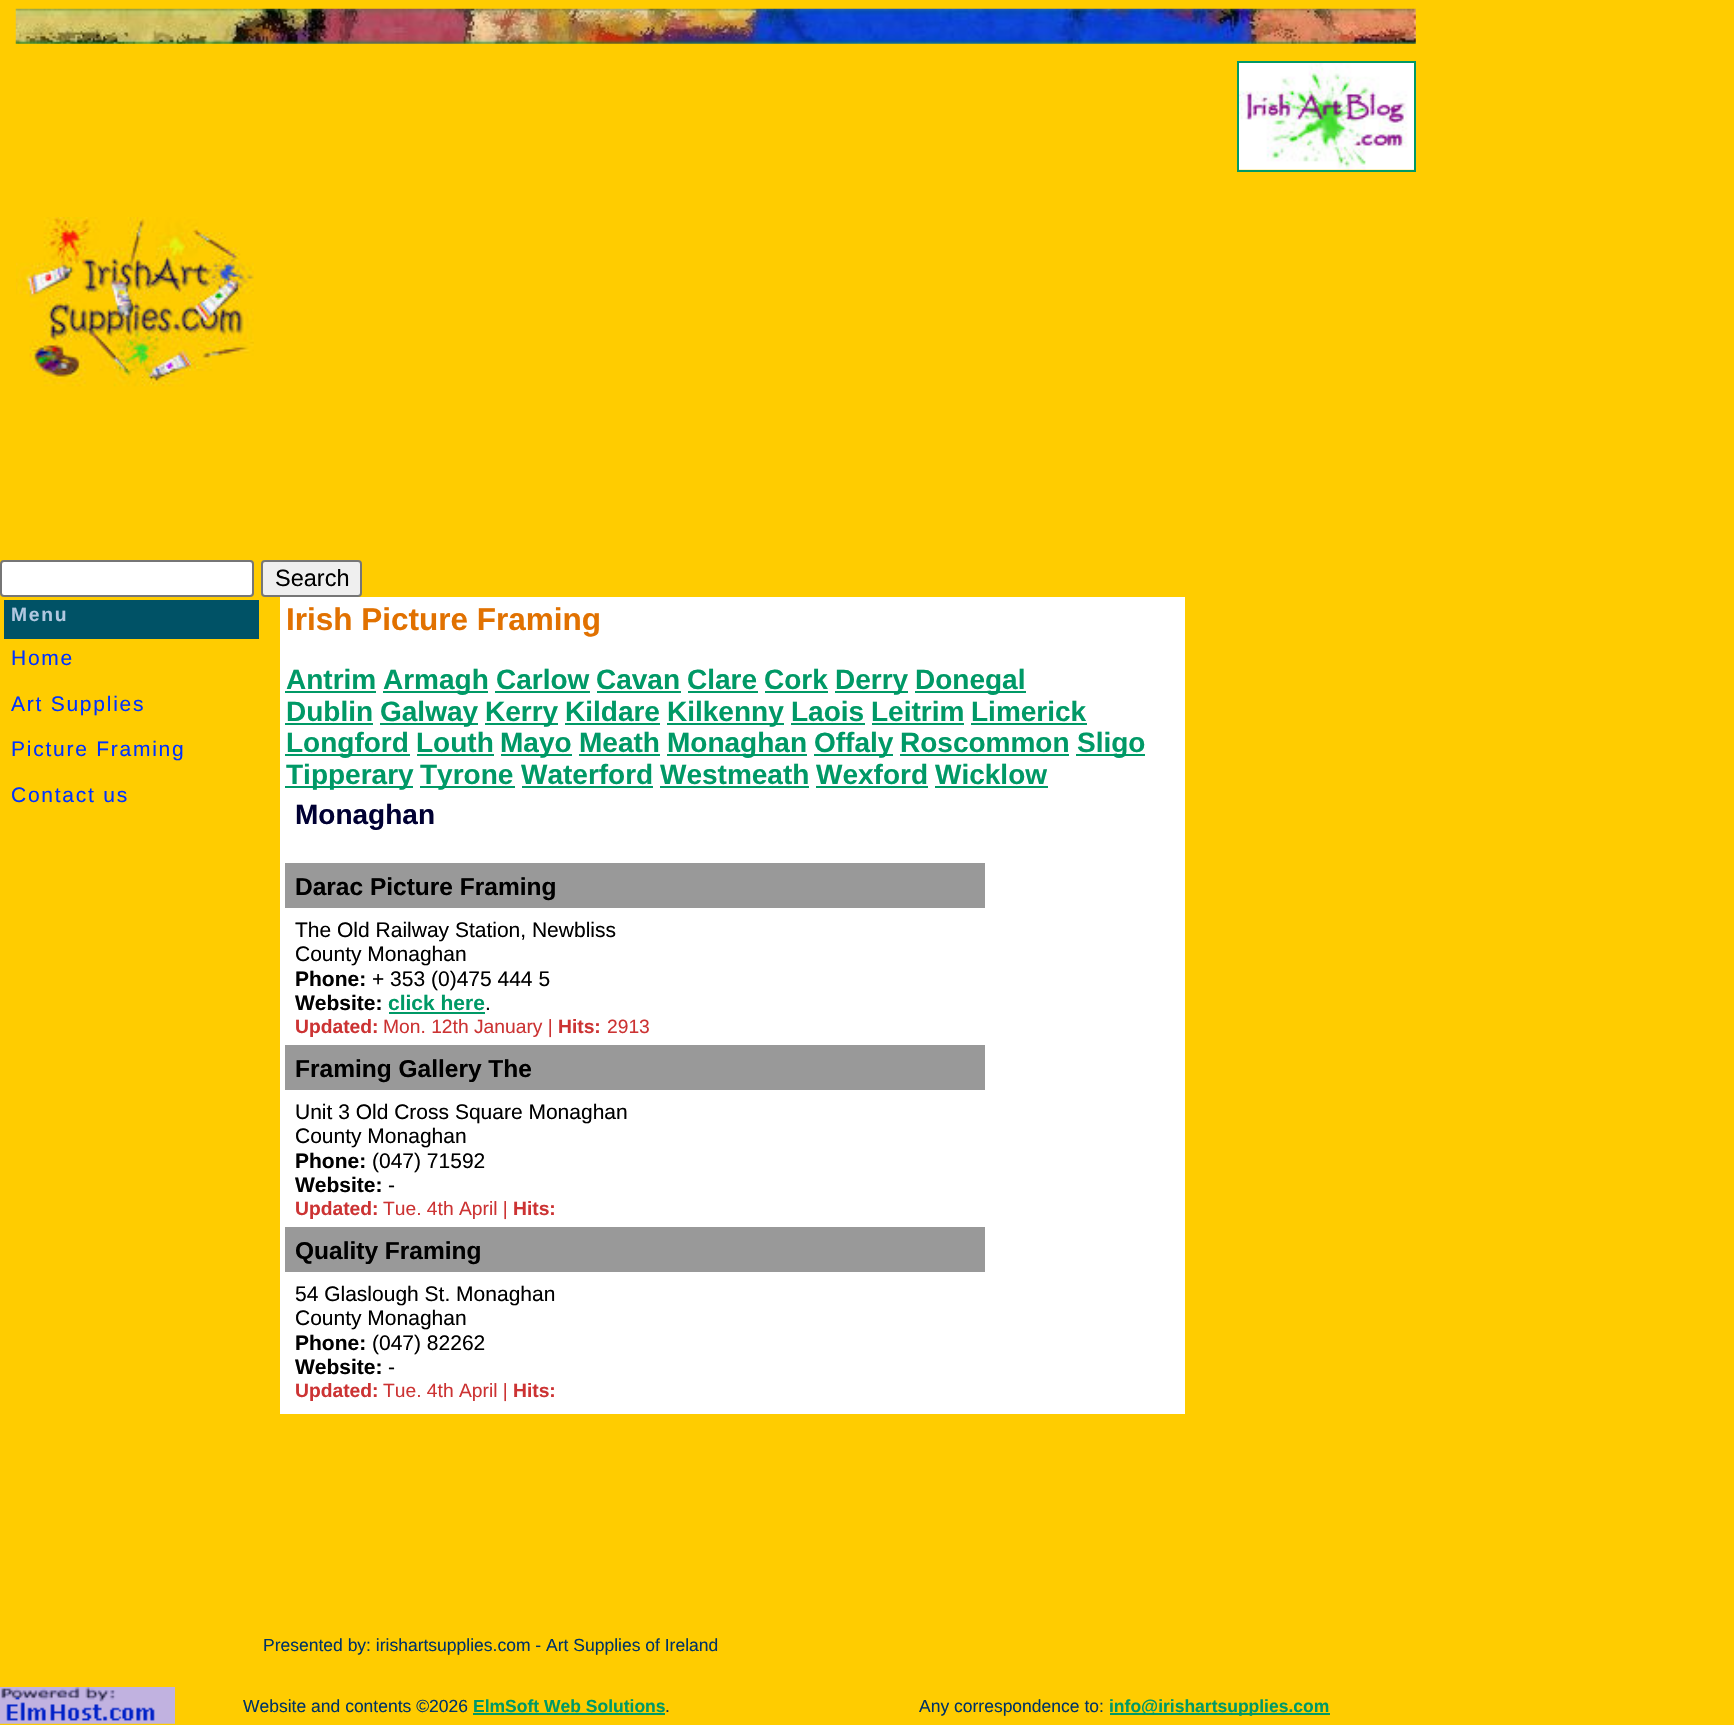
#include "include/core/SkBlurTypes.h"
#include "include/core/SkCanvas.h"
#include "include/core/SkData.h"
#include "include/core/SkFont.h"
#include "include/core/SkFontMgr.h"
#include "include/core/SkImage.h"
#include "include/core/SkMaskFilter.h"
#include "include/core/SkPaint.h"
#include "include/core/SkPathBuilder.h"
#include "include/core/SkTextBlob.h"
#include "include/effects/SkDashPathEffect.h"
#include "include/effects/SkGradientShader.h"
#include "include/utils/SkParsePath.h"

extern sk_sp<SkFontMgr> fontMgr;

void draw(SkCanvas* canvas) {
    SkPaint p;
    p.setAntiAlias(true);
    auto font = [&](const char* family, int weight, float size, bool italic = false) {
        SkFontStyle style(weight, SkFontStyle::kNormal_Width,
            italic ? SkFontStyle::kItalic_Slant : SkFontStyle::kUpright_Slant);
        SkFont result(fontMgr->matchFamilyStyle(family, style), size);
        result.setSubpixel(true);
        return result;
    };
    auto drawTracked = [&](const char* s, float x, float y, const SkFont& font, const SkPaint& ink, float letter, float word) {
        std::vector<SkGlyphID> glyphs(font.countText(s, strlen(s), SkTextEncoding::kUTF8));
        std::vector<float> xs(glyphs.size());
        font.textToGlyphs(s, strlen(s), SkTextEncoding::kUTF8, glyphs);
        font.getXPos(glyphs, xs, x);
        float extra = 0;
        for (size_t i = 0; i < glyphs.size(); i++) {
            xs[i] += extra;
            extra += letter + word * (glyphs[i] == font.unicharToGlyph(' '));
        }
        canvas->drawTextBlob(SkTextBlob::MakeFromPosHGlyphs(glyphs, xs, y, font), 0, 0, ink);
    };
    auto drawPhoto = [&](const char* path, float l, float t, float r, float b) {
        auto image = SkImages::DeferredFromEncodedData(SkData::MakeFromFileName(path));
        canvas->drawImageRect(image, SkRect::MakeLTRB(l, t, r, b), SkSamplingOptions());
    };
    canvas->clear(0xFFFFCC00);
    drawPhoto("media/1.png", 15, 8, 1416, 44);
    p.setStyle(SkPaint::kStroke_Style);
    p.setStrokeWidth(2);
    p.setColor(0xFF009966);
    canvas->drawRect(SkRect::MakeLTRB(1238, 62, 1415, 171), p);
    drawPhoto("media/2.png", 1239, 63, 1414, 170);
    drawPhoto("media/3.png", 16, 217, 254, 387);
    p.setStyle(SkPaint::kFill_Style);
    p.setColor(0xFFFFFFFF);
    canvas->drawRoundRect(SkRect::MakeLTRB(1, 561, 253, 596), 3, 3, p);
    p.setStyle(SkPaint::kStroke_Style);
    p.setColor(0xFF767676);
    canvas->drawRoundRect(SkRect::MakeLTRB(1, 561, 253, 596), 3, 3, p);
    p.setStyle(SkPaint::kFill_Style);
    p.setColor(0xFFEFEFEF);
    canvas->drawRoundRect(SkRect::MakeLTRB(262, 561, 361, 596), 3, 3, p);
    p.setStyle(SkPaint::kStroke_Style);
    p.setColor(0xFF767676);
    canvas->drawRoundRect(SkRect::MakeLTRB(262, 561, 361, 596), 3, 3, p);
    auto font1 = font("Liberation Sans", 400, 23.5f);
    p.setStyle(SkPaint::kFill_Style);
    p.setColor(0xFF000000);
    canvas->drawString("Search", 275, 586, font1, p);
    p.setColor(0xFF005266);
    canvas->drawRect(SkRect::MakeLTRB(4, 600, 259, 639), p);
    auto font2 = font("Liberation Sans", 700, 19.25f);
    p.setColor(0xFFB1C7E0);
    drawTracked("Menu", 11, 621, font2, p, 1.75f, 0);
    auto font3 = font("Liberation Sans", 400, 21);
    p.setColor(0xFF0033FF);
    {
        const struct { const char* s; float x, y; } items[] = {
            {"Home", 11, 665},
            {"Art Supplies", 11, 711},
            {"Picture Framing", 11, 756},
            {"Contact us", 11, 802},
        };
        for (auto [s, x, y] : items) {
            drawTracked(s, x, y, font3, p, 1.75f, 0);
        }
    }
    p.setColor(0xFFFFFFFF);
    canvas->drawRect(SkRect::MakeLTRB(280, 597, 1185, 1414), p);
    auto font4 = font("Liberation Sans", 700, 31.5f);
    p.setColor(0xFFE17100);
    canvas->drawString("Irish Picture Framing", 286, 630, font4, p);
    auto font5 = font("Liberation Sans", 700, 28);
    p.setColor(0xFF009966);
    canvas->drawString("Antrim", 286, 689, font5, p);
    canvas->drawRect(SkRect::MakeLTRB(285, 691, 376, 693), p);
    canvas->drawRect(SkRect::MakeLTRB(383, 691, 488, 693), p);
    canvas->drawString("Armagh", 383, 689, font5, p);
    canvas->drawString("Carlow", 496, 689, font5, p);
    canvas->drawRect(SkRect::MakeLTRB(495, 691, 590, 693), p);
    canvas->drawString("Cavan", 596, 689, font5, p);
    canvas->drawRect(SkRect::MakeLTRB(597, 691, 681, 693), p);
    canvas->drawString("Clare", 687, 689, font5, p);
    canvas->drawRect(SkRect::MakeLTRB(688, 691, 758, 693), p);
    canvas->drawString("Cork", 764, 689, font5, p);
    canvas->drawRect(SkRect::MakeLTRB(765, 691, 828, 693), p);
    canvas->drawRect(SkRect::MakeLTRB(835, 691, 908, 693), p);
    canvas->drawString("Derry", 835, 689, font5, p);
    canvas->drawRect(SkRect::MakeLTRB(915, 691, 1026, 693), p);
    canvas->drawString("Donegal", 915, 689, font5, p);
    canvas->drawString("Dublin", 286, 721, font5, p);
    canvas->drawRect(SkRect::MakeLTRB(285, 723, 373, 725), p);
    canvas->drawRect(SkRect::MakeLTRB(380, 723, 478, 725), p);
    canvas->drawString("Galway", 380, 721, font5, p);
    canvas->drawRect(SkRect::MakeLTRB(485, 723, 558, 725), p);
    canvas->drawString("Kerry", 485, 721, font5, p);
    canvas->drawString("Kildare", 565, 721, font5, p);
    canvas->drawRect(SkRect::MakeLTRB(565, 723, 660, 725), p);
    canvas->drawRect(SkRect::MakeLTRB(667, 723, 784, 725), p);
    canvas->drawString("Kilkenny", 667, 721, font5, p);
    canvas->drawString("Laois", 791, 721, font5, p);
    canvas->drawRect(SkRect::MakeLTRB(791, 723, 865, 725), p);
    canvas->drawString("Leitrim", 871, 721, font5, p);
    canvas->drawRect(SkRect::MakeLTRB(872, 723, 964, 725), p);
    canvas->drawString("Limerick", 971, 721, font5, p);
    canvas->drawRect(SkRect::MakeLTRB(971, 723, 1087, 725), p);
    canvas->drawRect(SkRect::MakeLTRB(285, 754, 410, 756), p);
    canvas->drawString("Longford", 286, 752, font5, p);
    canvas->drawString("Louth", 416, 752, font5, p);
    canvas->drawRect(SkRect::MakeLTRB(417, 754, 494, 756), p);
    canvas->drawRect(SkRect::MakeLTRB(501, 754, 572, 756), p);
    canvas->drawString("Mayo", 500, 752, font5, p);
    canvas->drawString("Meath", 579, 752, font5, p);
    canvas->drawRect(SkRect::MakeLTRB(579, 754, 660, 756), p);
    canvas->drawRect(SkRect::MakeLTRB(667, 754, 807, 756), p);
    canvas->drawString("Monaghan", 667, 752, font5, p);
    canvas->drawRect(SkRect::MakeLTRB(814, 754, 893, 756), p);
    canvas->drawString("Offaly", 814, 752, font5, p);
    canvas->drawString("Roscommon", 900, 752, font5, p);
    canvas->drawRect(SkRect::MakeLTRB(900, 754, 1069, 756), p);
    canvas->drawRect(SkRect::MakeLTRB(1076, 754, 1145, 756), p);
    canvas->drawString("Sligo", 1077, 752, font5, p);
    canvas->drawRect(SkRect::MakeLTRB(285, 786, 413, 788), p);
    canvas->drawString("Tipperary", 286, 784, font5, p);
    canvas->drawRect(SkRect::MakeLTRB(420, 786, 515, 788), p);
    canvas->drawString("Tyrone", 420, 784, font5, p);
    canvas->drawString("Waterford", 521, 784, font5, p);
    canvas->drawRect(SkRect::MakeLTRB(522, 786, 653, 788), p);
    canvas->drawString("Westmeath", 660, 784, font5, p);
    canvas->drawRect(SkRect::MakeLTRB(660, 786, 809, 788), p);
    canvas->drawString("Wexford", 816, 784, font5, p);
    canvas->drawRect(SkRect::MakeLTRB(816, 786, 928, 788), p);
    canvas->drawString("Wicklow", 935, 784, font5, p);
    canvas->drawRect(SkRect::MakeLTRB(935, 786, 1048, 788), p);
    p.setColor(0xFF000033);
    canvas->drawString("Monaghan", 295, 824, font5, p);
    p.setColor(0xFF999999);
    canvas->drawRect(SkRect::MakeLTRB(285, 863, 985, 908), p);
    auto font6 = font("Liberation Sans", 700, 24.5f);
    p.setColor(0xFF000000);
    canvas->drawString("Darac Picture Framing", 295, 895, font6, p);
    canvas->drawString("The Old Railway Station, Newbliss", 295, 937, font3, p);
    canvas->drawString("County Monaghan", 295, 961, font3, p);
    auto font7 = font("Liberation Sans", 700, 21);
    canvas->drawString("Phone:", 295, 986, font7, p);
    canvas->drawString("+ 353 (0)475 444 5", 372, 986, font3, p);
    canvas->drawString("Website:", 295, 1010, font7, p);
    p.setColor(0xFF009966);
    canvas->drawString("click here", 388, 1010, font7, p);
    canvas->drawRect(SkRect::MakeLTRB(389, 1012, 485, 1014), p);
    p.setColor(0xFF000000);
    canvas->drawString(".", 485, 1010, font3, p);
    p.setColor(0xFFCC3333);
    canvas->drawString("Updated:", 295, 1033, font2, p);
    auto font8 = font("Liberation Sans", 400, 19.25f);
    canvas->drawString("Mon. 12th January |", 383, 1033, font8, p);
    canvas->drawString("Hits:", 558, 1033, font2, p);
    canvas->drawString("2913", 607, 1033, font8, p);
    p.setColor(0xFF999999);
    canvas->drawRect(SkRect::MakeLTRB(285, 1045, 985, 1090), p);
    p.setColor(0xFF000000);
    canvas->drawString("Framing Gallery The", 295, 1077, font6, p);
    canvas->drawString("Unit 3 Old Cross Square Monaghan", 295, 1119, font3, p);
    canvas->drawString("County Monaghan", 295, 1143, font3, p);
    canvas->drawString("Phone:", 295, 1168, font7, p);
    canvas->drawString("(047) 71592", 372, 1168, font3, p);
    canvas->drawString("Website:", 295, 1192, font7, p);
    canvas->drawString("-", 388, 1192, font3, p);
    p.setColor(0xFFCC3333);
    canvas->drawString("Updated:", 295, 1215, font2, p);
    canvas->drawString("Tue. 4th April |", 383, 1215, font8, p);
    canvas->drawString("Hits:", 513, 1215, font2, p);
    p.setColor(0xFF999999);
    canvas->drawRect(SkRect::MakeLTRB(285, 1227, 985, 1272), p);
    p.setColor(0xFF000000);
    canvas->drawString("Quality Framing", 295, 1259, font6, p);
    canvas->drawString("54 Glaslough St. Monaghan", 295, 1301, font3, p);
    canvas->drawString("County Monaghan", 295, 1325, font3, p);
    canvas->drawString("Phone:", 295, 1350, font7, p);
    canvas->drawString("(047) 82262", 372, 1350, font3, p);
    canvas->drawString("Website:", 295, 1374, font7, p);
    canvas->drawString("-", 388, 1374, font3, p);
    p.setColor(0xFFCC3333);
    canvas->drawString("Updated:", 295, 1397, font2, p);
    canvas->drawString("Tue. 4th April |", 383, 1397, font8, p);
    canvas->drawString("Hits:", 513, 1397, font2, p);
    auto font9 = font("Liberation Sans", 400, 17.5f);
    p.setColor(0xFF003366);
    canvas->drawString("Presented by: irishartsupplies.com - Art Supplies of Ireland", 263, 1651, font9, p);
    drawPhoto("media/4.png", 0, 1687, 175, 1724);
    canvas->drawString("Website and contents ©2026", 243, 1712, font9, p);
    auto font10 = font("Liberation Sans", 700, 17.5f);
    p.setColor(0xFF009966);
    canvas->drawString("ElmSoft Web Solutions", 473, 1712, font10, p);
    p.setColor(0xFF003366);
    canvas->drawString(".", 665, 1712, font9, p);
    p.setColor(0xFF009966);
    canvas->drawRect(SkRect::MakeLTRB(473, 1713, 665, 1715), p);
    p.setColor(0xFF003366);
    canvas->drawString("Any correspondence to:", 919, 1712, font9, p);
    p.setColor(0xFF009966);
    canvas->drawRect(SkRect::MakeLTRB(1110, 1713, 1330, 1715), p);
    canvas->drawString("info@irishartsupplies.com", 1109, 1712, font10, p);
}
